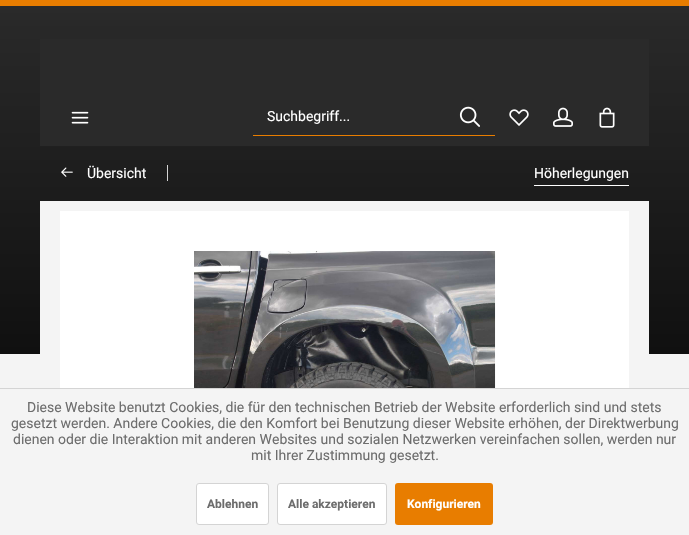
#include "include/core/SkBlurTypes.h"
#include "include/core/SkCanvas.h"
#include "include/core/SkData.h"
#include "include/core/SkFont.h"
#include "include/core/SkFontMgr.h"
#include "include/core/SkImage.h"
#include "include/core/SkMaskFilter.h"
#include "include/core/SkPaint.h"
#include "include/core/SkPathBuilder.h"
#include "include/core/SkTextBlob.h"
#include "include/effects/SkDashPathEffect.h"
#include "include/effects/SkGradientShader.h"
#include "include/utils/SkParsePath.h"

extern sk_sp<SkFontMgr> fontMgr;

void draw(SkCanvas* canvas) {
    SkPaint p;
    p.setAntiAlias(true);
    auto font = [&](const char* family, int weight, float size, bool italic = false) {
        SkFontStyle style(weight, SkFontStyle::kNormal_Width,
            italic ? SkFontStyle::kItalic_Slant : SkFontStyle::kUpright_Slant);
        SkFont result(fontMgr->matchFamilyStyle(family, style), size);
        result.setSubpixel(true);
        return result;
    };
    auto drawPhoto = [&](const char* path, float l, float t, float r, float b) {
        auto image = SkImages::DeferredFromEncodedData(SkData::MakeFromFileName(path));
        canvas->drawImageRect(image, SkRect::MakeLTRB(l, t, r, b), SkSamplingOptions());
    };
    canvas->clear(0xFFF4F4F4);
    p.setColor(0xFFE87D00);
    canvas->drawRect(SkRect::MakeLTRB(0, 0, 689, 6), p);
    {
        const SkColor colors[] = {0xFF2A2A2A, 0xFF101010};
        const float stops[] = {0, 1};
        const SkPoint ends[] = {{345, 6}, {345, 354}};
        p.setShader(SkGradientShader::MakeLinear(ends, colors, stops, 2, SkTileMode::kClamp));
        p.setAlpha(255);
    }
    canvas->drawRect(SkRect::MakeLTRB(0, 6, 689, 354), p);
    p.setShader(nullptr);
    p.setColor(0xFF2A2A2A);
    canvas->drawRect(SkRect::MakeLTRB(40, 39, 649, 146), p);
    drawPhoto("media/1.png", 71, 111, 89, 124);
    p.setColor(0xFFE87D00);
    canvas->drawRect(SkRect::MakeLTRB(253, 135, 495, 136), p);
    auto font1 = font("Roboto", 400, 14);
    p.setColor(0xFFFFFFFF);
    canvas->drawString("Suchbegriff...", 267, 121, font1, p);
    drawPhoto("media/2.png", 459, 106, 480, 127);
    drawPhoto("media/3.png", 509, 109, 529, 126);
    drawPhoto("media/4.png", 553, 107, 573, 127);
    drawPhoto("media/5.png", 599, 107, 615, 128);
    drawPhoto("media/6.png", 61, 167, 73, 177);
    canvas->drawString("Übersicht", 87, 178, font1, p);
    p.setColor(0xFFD4D4D4);
    canvas->drawRect(SkRect::MakeLTRB(167, 165, 168, 181), p);
    p.setColor(0xFFFFFFFF);
    canvas->drawRect(SkRect::MakeLTRB(534, 185, 629, 186), p);
    canvas->drawString("Höherlegungen", 534, 178, font1, p);
    p.setColor(0xFFF4F4F4);
    canvas->drawRect(SkRect::MakeLTRB(40, 201, 649, 354), p);
    p.setColor(0xFFFFFFFF);
    canvas->drawRect(SkRect::MakeLTRB(60, 211, 629, 388), p);
    drawPhoto("media/7.png", 194, 251, 496, 388);
    p.setColor(0xFFD4D4D4);
    canvas->drawRect(SkRect::MakeLTRB(0, 388, 689, 389), p);
    p.setColor(0xFF6D6D6D);
    {
        const struct { const char* s; float x, y; } items[] = {
            {"Diese Website benutzt Cookies, die für den technischen Betrieb der Website erforderlich sind und stets", 27, 412},
            {"gesetzt werden. Andere Cookies, die den Komfort bei Benutzung dieser Website erhöhen, der Direktwerbung", 11, 428},
            {"dienen oder die Interaktion mit anderen Websites und sozialen Netzwerken vereinfachen sollen, werden nur", 13, 444},
            {"mit Ihrer Zustimmung gesetzt.", 251, 460},
        };
        for (auto [s, x, y] : items) {
            canvas->drawString(s, x, y, font1, p);
        }
    }
    p.setColor(0xFFFFFFFF);
    canvas->drawRoundRect(SkRect::MakeLTRB(196.5f, 483.5f, 268.5f, 524.5f), 2.5f, 2.5f, p);
    p.setStyle(SkPaint::kStroke_Style);
    p.setStrokeWidth(1);
    p.setColor(0xFFD4D4D4);
    canvas->drawRoundRect(SkRect::MakeLTRB(196.5f, 483.5f, 268.5f, 524.5f), 2.5f, 2.5f, p);
    auto font2 = font("Roboto", 700, 12);
    p.setStyle(SkPaint::kFill_Style);
    p.setColor(0xFF6D6D6D);
    canvas->drawString("Ablehnen", 207, 508, font2, p);
    p.setColor(0xFFFFFFFF);
    canvas->drawRoundRect(SkRect::MakeLTRB(277.5f, 483.5f, 386.5f, 524.5f), 2.5f, 2.5f, p);
    p.setStyle(SkPaint::kStroke_Style);
    p.setColor(0xFFD4D4D4);
    canvas->drawRoundRect(SkRect::MakeLTRB(277.5f, 483.5f, 386.5f, 524.5f), 2.5f, 2.5f, p);
    p.setStyle(SkPaint::kFill_Style);
    p.setColor(0xFF6D6D6D);
    canvas->drawString("Alle akzeptieren", 288, 508, font2, p);
    p.setColor(0xFFE87D00);
    canvas->drawRoundRect(SkRect::MakeLTRB(395, 483, 493, 525), 3, 3, p);
    p.setColor(0xFFFFFFFF);
    canvas->drawString("Konfigurieren", 407, 508, font2, p);
}
